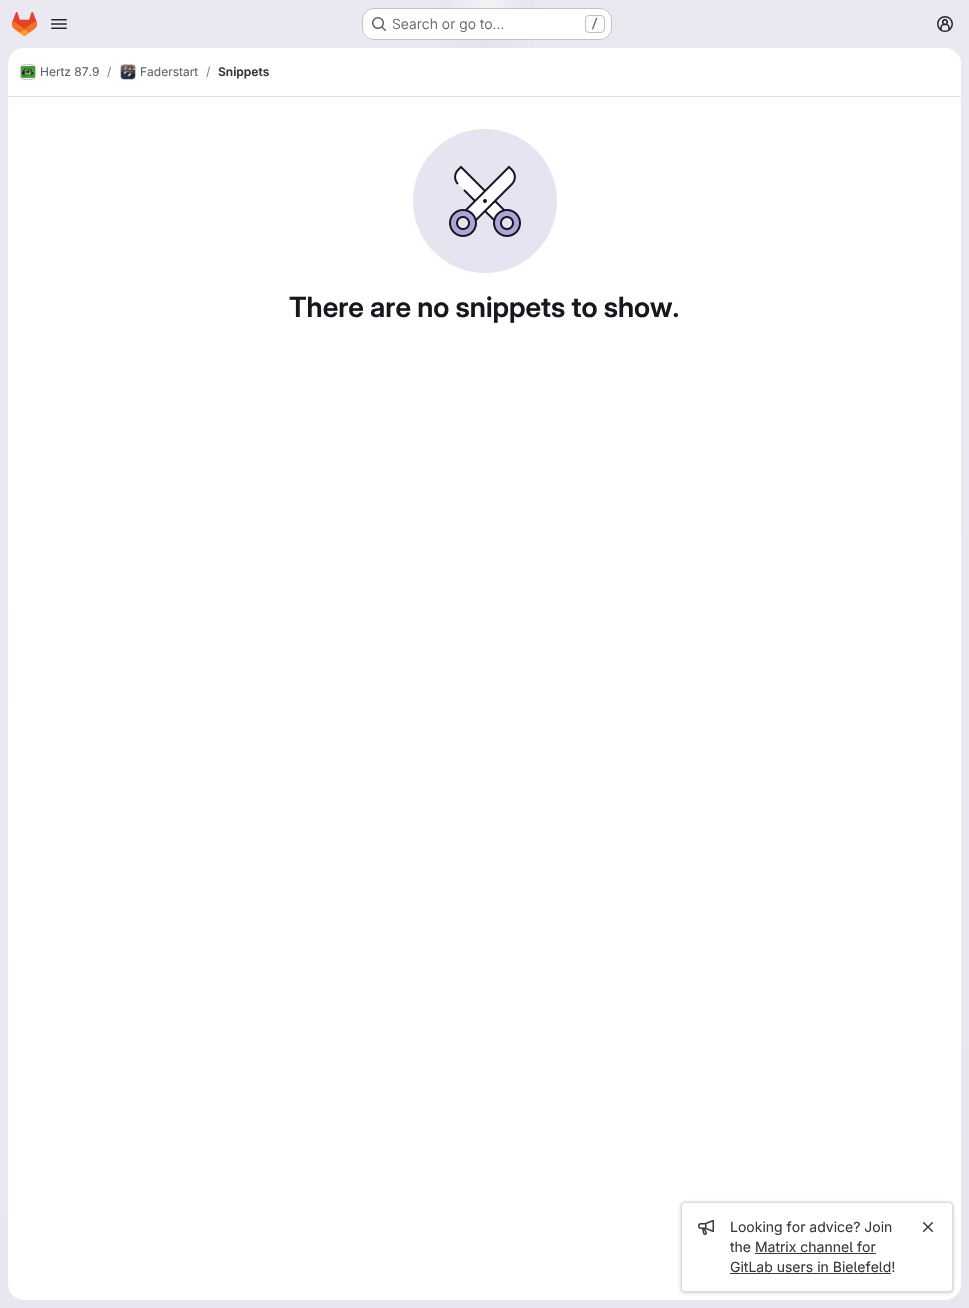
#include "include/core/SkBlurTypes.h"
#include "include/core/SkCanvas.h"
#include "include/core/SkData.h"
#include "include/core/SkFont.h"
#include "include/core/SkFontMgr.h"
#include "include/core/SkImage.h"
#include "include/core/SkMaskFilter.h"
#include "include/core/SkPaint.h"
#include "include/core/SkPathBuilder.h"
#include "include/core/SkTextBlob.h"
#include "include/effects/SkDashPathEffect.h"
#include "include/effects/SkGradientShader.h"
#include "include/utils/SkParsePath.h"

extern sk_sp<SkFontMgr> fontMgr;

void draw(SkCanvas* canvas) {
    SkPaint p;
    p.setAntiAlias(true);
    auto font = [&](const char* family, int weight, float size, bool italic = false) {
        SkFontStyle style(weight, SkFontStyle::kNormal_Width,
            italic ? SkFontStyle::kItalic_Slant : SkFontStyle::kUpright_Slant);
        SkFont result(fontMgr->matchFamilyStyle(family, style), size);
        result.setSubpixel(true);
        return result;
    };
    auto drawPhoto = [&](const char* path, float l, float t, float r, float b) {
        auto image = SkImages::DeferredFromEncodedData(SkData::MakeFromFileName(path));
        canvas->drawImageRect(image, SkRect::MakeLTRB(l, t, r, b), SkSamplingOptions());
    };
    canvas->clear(0xFFFFFFFF);
    {
        const SkColor colors[] = {0xFFE8E6F0, 0xFFEAE9F2};
        const float stops[] = {0, 0.7f};
        const SkPoint ends[] = {{611, 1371}, {358, -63}};
        p.setShader(SkGradientShader::MakeLinear(ends, colors, stops, 2, SkTileMode::kClamp));
        p.setAlpha(255);
    }
    canvas->drawRect(SkRect::MakeLTRB(0, 0, 969, 1308), p);
    {
        const SkColor colors[] = {0xFFE4E2ED, 0x00E4E2ED};
        const float stops[] = {0, 0.14f};
        SkMatrix m = SkMatrix::Translate(485, 0).preScale(485, 1308);
        p.setShader(SkGradientShader::MakeRadial({0, 0}, 1, colors, stops, 2, SkTileMode::kClamp, 0, &m));
        p.setAlpha(255);
    }
    canvas->drawRect(SkRect::MakeLTRB(436, 0, 534, 48), p);
    {
        const SkColor colors[] = {0xFFE4E2EC, 0x00E4E2EC};
        const float stops[] = {0, 0.1f};
        SkMatrix m = SkMatrix::Translate(485, 0).preScale(485, 1308);
        p.setShader(SkGradientShader::MakeRadial({0, 0}, 1, colors, stops, 2, SkTileMode::kClamp, 0, &m));
        p.setAlpha(255);
    }
    canvas->drawRect(SkRect::MakeLTRB(465, 10, 505, 46), p);
    {
        const SkColor colors[] = {0x99FFFFFF, 0x00FFFFFF};
        const float stops[] = {0, 0.03f};
        p.setShader(SkGradientShader::MakeRadial({485, 0}, 1395, colors, stops, 2, SkTileMode::kClamp));
        p.setAlpha(255);
    }
    canvas->drawRect(SkRect::MakeLTRB(450, 0, 520, 35), p);
    drawPhoto("media/1.png", 12, 12, 37, 36);
    drawPhoto("media/2.png", 51, 19, 67, 29);
    p.setShader(nullptr);
    p.setColor(0xFFFFFFFF);
    canvas->drawRoundRect(SkRect::MakeLTRB(362, 8, 612, 40), 12, 12, p);
    p.setStyle(SkPaint::kStroke_Style);
    p.setStrokeWidth(1);
    p.setColor(0x3D050506);
    canvas->drawRoundRect(SkRect::MakeLTRB(362.5f, 8.5f, 611.5f, 39.5f), 11.5f, 11.5f, p);
    drawPhoto("media/3.png", 372, 17, 386, 31);
    auto font1 = font("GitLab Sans", 300, 14);
    p.setStyle(SkPaint::kFill_Style);
    p.setColor(0xFF626168);
    canvas->drawString("Search or go to…", 392, 29, font1, p);
    p.setColor(0xFFFBFAFD);
    canvas->drawRoundRect(SkRect::MakeLTRB(585.5f, 15.5f, 604.5f, 32.5f), 3.5f, 3.5f, p);
    p.setStyle(SkPaint::kStroke_Style);
    p.setColor(0xFFBFBFC3);
    canvas->drawRoundRect(SkRect::MakeLTRB(585.5f, 15.5f, 604.5f, 32.5f), 3.5f, 3.5f, p);
    auto font2 = font("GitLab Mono", 500, 12);
    p.setStyle(SkPaint::kFill_Style);
    p.setColor(0xFF626168);
    canvas->drawString("/", 591, 28, font2, p);
    drawPhoto("media/4.png", 937, 16, 953, 32);
    p.setColor(0xFFFFFFFF);
    canvas->drawRoundRect(SkRect::MakeLTRB(8, 48, 961, 1300), 16, 16, p);
    canvas->drawPath(SkPathBuilder().moveTo(24, 48).lineTo(945, 48).cubicTo(954, 48, 961, 55, 961, 64).lineTo(961, 97).lineTo(8, 97).lineTo(8, 64).cubicTo(8, 55, 15, 48, 24, 48).close().detach(), p);
    p.setColor(0xFFE1DFEC);
    canvas->drawRect(SkRect::MakeLTRB(8, 96, 961, 97), p);
    p.setStyle(SkPaint::kStroke_Style);
    p.setColor(0xFFDCDCDE);
    canvas->drawRoundRect(SkRect::MakeLTRB(20.5f, 64.5f, 35.5f, 79.5f), 3.5f, 3.5f, p);
    drawPhoto("media/5.png", 21, 66, 35, 78);
    p.setColor(0x14050506);
    canvas->drawRoundRect(SkRect::MakeLTRB(20.5f, 64.5f, 35.5f, 79.5f), 3.5f, 3.5f, p);
    auto font3 = font("GitLab Sans", 400, 12);
    p.setStyle(SkPaint::kFill_Style);
    p.setColor(0xFF626168);
    canvas->drawString("Hertz 87.9", 40, 76, font3, p);
    p.setColor(0xFF89888D);
    canvas->drawString("/", 107, 76, font3, p);
    p.setStyle(SkPaint::kStroke_Style);
    p.setColor(0xFFDCDCDE);
    canvas->drawRoundRect(SkRect::MakeLTRB(120.5f, 64.5f, 135.5f, 79.5f), 3.5f, 3.5f, p);
    drawPhoto("media/6.png", 121, 65, 135, 79);
    p.setColor(0x14050506);
    canvas->drawRoundRect(SkRect::MakeLTRB(120.5f, 64.5f, 135.5f, 79.5f), 3.5f, 3.5f, p);
    p.setStyle(SkPaint::kFill_Style);
    p.setColor(0xFF626168);
    canvas->drawString("Faderstart", 140, 76, font3, p);
    p.setColor(0xFF89888D);
    canvas->drawString("/", 206, 76, font3, p);
    auto font4 = font("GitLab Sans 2", 600, 12);
    p.setColor(0xFF3A383F);
    canvas->drawString("Snippets", 218, 76, font4, p);
    p.setColor(0x29050506);
    p.setMaskFilter(SkMaskFilter::MakeBlur(kNormal_SkBlurStyle, 2));
    canvas->drawRoundRect(SkRect::MakeLTRB(681, 1203, 953, 1293), 4, 4, p);
    p.setMaskFilter(nullptr);
    p.setMaskFilter(SkMaskFilter::MakeBlur(kNormal_SkBlurStyle, 1));
    canvas->drawRoundRect(SkRect::MakeLTRB(681, 1202, 953, 1292), 4, 4, p);
    p.setMaskFilter(nullptr);
    p.setColor(0xFFFFFFFF);
    canvas->drawRoundRect(SkRect::MakeLTRB(681.5f, 1202.5f, 952.5f, 1291.5f), 3.5f, 3.5f, p);
    p.setStyle(SkPaint::kStroke_Style);
    p.setColor(0xFFDCDCDE);
    canvas->drawRoundRect(SkRect::MakeLTRB(681.5f, 1202.5f, 952.5f, 1291.5f), 3.5f, 3.5f, p);
    drawPhoto("media/7.png", 698, 1220, 714, 1235);
    auto font5 = font("GitLab Sans", 400, 14);
    p.setStyle(SkPaint::kFill_Style);
    p.setColor(0xFF3A383F);
    {
        const struct { const char* s; float x, y; } items[] = {
            {"Looking for advice? Join", 730, 1232},
            {"the Matrix channel for", 730, 1252},
            {"GitLab users in Bielefeld!", 730, 1272},
        };
        for (auto [s, x, y] : items) {
            canvas->drawString(s, x, y, font5, p);
        }
    }
    canvas->drawRect(SkRect::MakeLTRB(755, 1253, 876, 1254), p);
    canvas->drawRect(SkRect::MakeLTRB(730, 1273, 891, 1274), p);
    drawPhoto("media/8.png", 923, 1222, 933, 1232);
    drawPhoto("media/9.png", 413, 129, 557, 273);
    auto font6 = font("GitLab Sans", 600, 28);
    p.setColor(0xFF18171D);
    canvas->drawString("There are no snippets to show.", 289, 317, font6, p);
}
